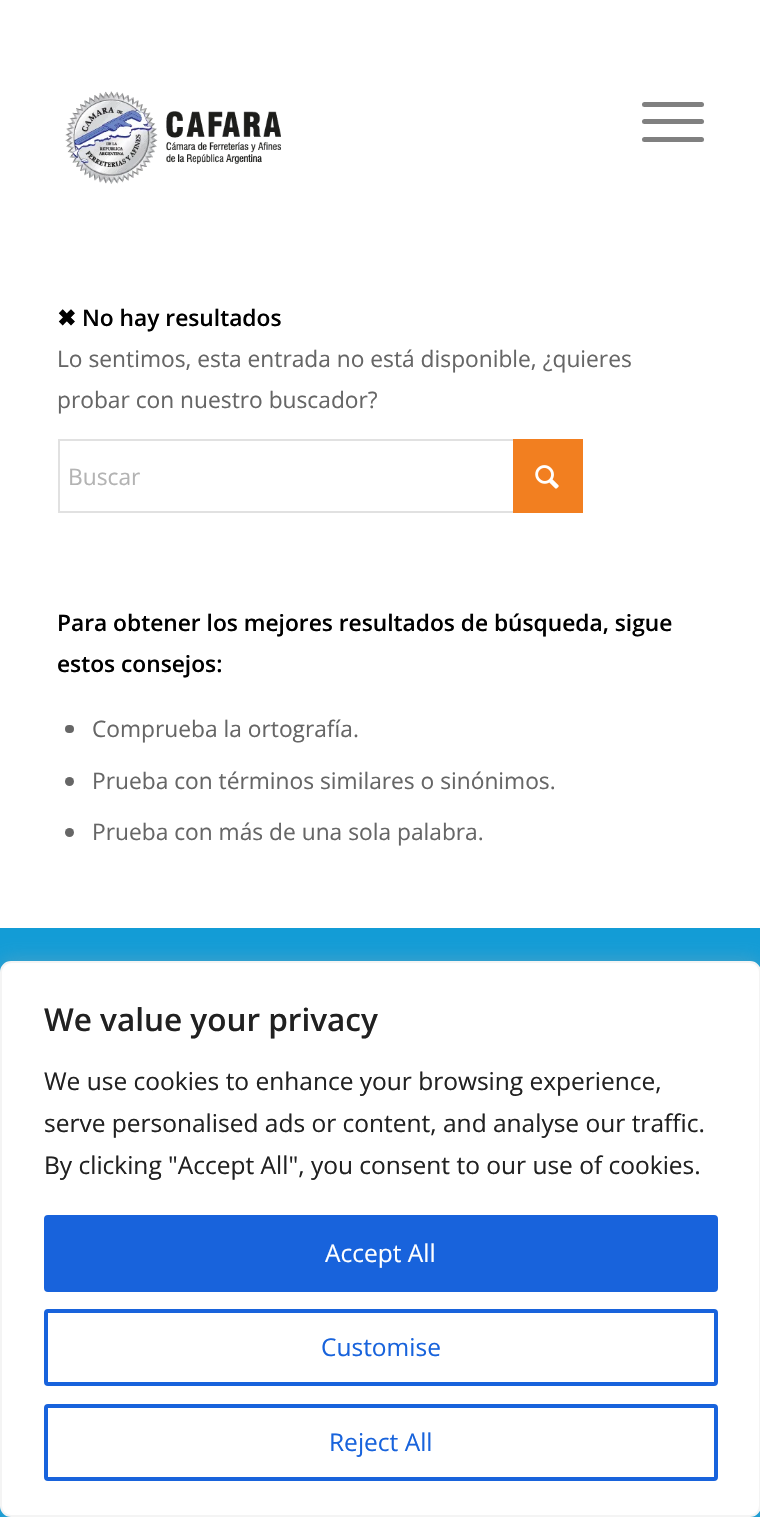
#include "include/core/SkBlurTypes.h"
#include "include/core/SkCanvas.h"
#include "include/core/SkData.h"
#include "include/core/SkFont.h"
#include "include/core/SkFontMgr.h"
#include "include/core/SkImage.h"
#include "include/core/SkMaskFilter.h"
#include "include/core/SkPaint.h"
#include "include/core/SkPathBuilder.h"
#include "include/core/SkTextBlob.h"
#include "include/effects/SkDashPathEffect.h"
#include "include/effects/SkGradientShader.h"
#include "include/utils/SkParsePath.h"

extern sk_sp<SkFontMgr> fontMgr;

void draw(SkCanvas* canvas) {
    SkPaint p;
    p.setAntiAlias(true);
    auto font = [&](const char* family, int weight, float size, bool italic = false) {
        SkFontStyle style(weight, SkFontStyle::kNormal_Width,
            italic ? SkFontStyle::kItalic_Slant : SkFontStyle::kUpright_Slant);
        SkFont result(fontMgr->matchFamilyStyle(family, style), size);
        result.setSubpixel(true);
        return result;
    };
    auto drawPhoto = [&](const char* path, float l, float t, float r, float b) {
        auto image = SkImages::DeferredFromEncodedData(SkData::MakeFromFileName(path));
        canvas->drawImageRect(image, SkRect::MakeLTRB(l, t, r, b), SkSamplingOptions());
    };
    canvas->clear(0xFFFFFFFF);
    drawPhoto("media/1.png", 65, 91, 281, 184);
    p.setColor(0xFF808080);
    canvas->drawRoundRect(SkRect::MakeLTRB(642, 119, 704, 124), 2.5f, 2.5f, p);
    canvas->drawRoundRect(SkRect::MakeLTRB(642, 102, 704, 107), 2.5f, 2.5f, p);
    canvas->drawRoundRect(SkRect::MakeLTRB(642, 137, 704, 142), 2.5f, 2.5f, p);
    auto font1 = font("DejaVu Sans", 700, 22.75f);
    p.setColor(0xFF000000);
    canvas->drawString("✖", 57, 326, font1, p);
    auto font2 = font("Open Sans", 600, 22.75f);
    canvas->drawString("No hay resultados", 82, 326, font2, p);
    auto font3 = font("Open Sans", 400, 22.75f);
    p.setColor(0xFF666666);
    canvas->drawString("Lo sentimos, esta entrada no está disponible, ¿quieres", 57, 367, font3, p);
    canvas->drawString("probar con nuestro buscador?", 57, 408, font3, p);
    p.setStyle(SkPaint::kStroke_Style);
    p.setStrokeWidth(2);
    p.setColor(0xFFE1E1E1);
    canvas->drawRect(SkRect::MakeLTRB(59, 440, 582, 512), p);
    p.setStyle(SkPaint::kFill_Style);
    p.setColor(0xFFF27F20);
    canvas->drawRect(SkRect::MakeLTRB(513, 439, 583, 513), p);
    p.setColor(0xFFB3B3B3);
    canvas->drawString("Buscar", 68, 485, font3, p);
    drawPhoto("media/2.png", 535, 465, 559, 489);
    p.setColor(0xFF000000);
    canvas->drawString("Para obtener los mejores resultados de búsqueda, sigue", 57, 631, font2, p);
    canvas->drawString("estos consejos:", 57, 672, font2, p);
    p.setColor(0xFF666666);
    canvas->drawRoundRect(SkRect::MakeLTRB(65, 725, 74, 733), 4, 4, p);
    canvas->drawString("Comprueba la ortografía.", 92, 737, font3, p);
    canvas->drawCircle(69.5f, 781.5f, 4.5f, p);
    canvas->drawString("Prueba con términos similares o sinónimos.", 92, 789, font3, p);
    canvas->drawCircle(69.5f, 832.5f, 4.5f, p);
    canvas->drawString("Prueba con más de una sola palabra.", 92, 840, font3, p);
    p.setColor(0xFF139CD6);
    canvas->drawRect(SkRect::MakeLTRB(0, 928, 760, 1517), p);
    p.setColor(0x4DACABAB);
    p.setMaskFilter(SkMaskFilter::MakeBlur(kNormal_SkBlurStyle, 9));
    canvas->drawRoundRect(SkRect::MakeLTRB(0, 959, 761, 1516), 11, 11, p);
    p.setMaskFilter(nullptr);
    p.setColor(0xFFFFFFFF);
    canvas->drawRoundRect(SkRect::MakeLTRB(1, 962, 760, 1516), 10, 10, p);
    p.setStyle(SkPaint::kStroke_Style);
    p.setColor(0xFFF4F4F4);
    canvas->drawRoundRect(SkRect::MakeLTRB(1, 962, 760, 1516), 10, 10, p);
    auto font4 = font("Open Sans", 600, 31.5f);
    p.setStyle(SkPaint::kFill_Style);
    p.setColor(0xFF212121);
    canvas->drawString("We value your privacy", 44, 1031, font4, p);
    auto font5 = font("Open Sans", 400, 24.5f);
    {
        const struct { const char* s; float x, y; } items[] = {
            {"We use cookies to enhance your browsing experience,", 44, 1090},
            {"serve personalised ads or content, and analyse our traffic.", 44, 1132},
            {"By clicking \"Accept All\", you consent to our use of cookies.", 44, 1174},
        };
        for (auto [s, x, y] : items) {
            canvas->drawString(s, x, y, font5, p);
        }
    }
    p.setColor(0xFF1863DC);
    canvas->drawRoundRect(SkRect::MakeLTRB(46, 1217, 716, 1290), 2, 2, p);
    p.setStyle(SkPaint::kStroke_Style);
    p.setStrokeWidth(4);
    canvas->drawRoundRect(SkRect::MakeLTRB(46, 1217, 716, 1290), 2, 2, p);
    p.setStyle(SkPaint::kFill_Style);
    p.setColor(0xFFFFFFFF);
    canvas->drawString("Accept All", 325, 1262, font5, p);
    p.setStyle(SkPaint::kStroke_Style);
    p.setColor(0xFF1863DC);
    canvas->drawRoundRect(SkRect::MakeLTRB(46, 1311, 716, 1384), 2, 2, p);
    p.setStyle(SkPaint::kFill_Style);
    canvas->drawString("Customise", 321, 1356, font5, p);
    p.setStyle(SkPaint::kStroke_Style);
    canvas->drawRoundRect(SkRect::MakeLTRB(46, 1406, 716, 1479), 2, 2, p);
    p.setStyle(SkPaint::kFill_Style);
    canvas->drawString("Reject All", 329, 1451, font5, p);
}
